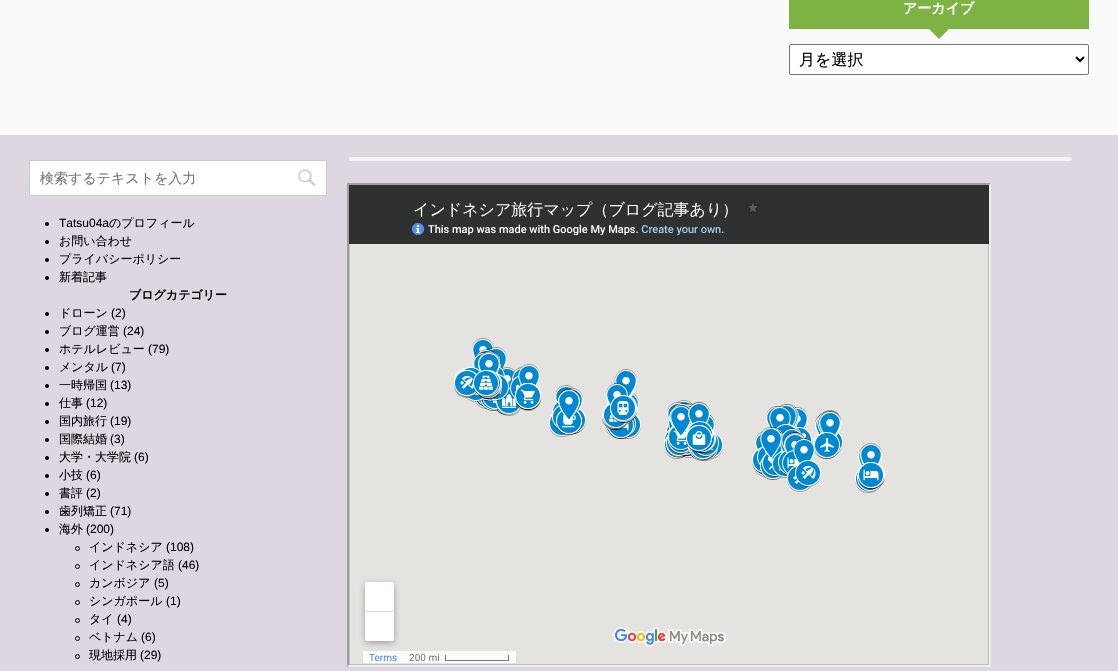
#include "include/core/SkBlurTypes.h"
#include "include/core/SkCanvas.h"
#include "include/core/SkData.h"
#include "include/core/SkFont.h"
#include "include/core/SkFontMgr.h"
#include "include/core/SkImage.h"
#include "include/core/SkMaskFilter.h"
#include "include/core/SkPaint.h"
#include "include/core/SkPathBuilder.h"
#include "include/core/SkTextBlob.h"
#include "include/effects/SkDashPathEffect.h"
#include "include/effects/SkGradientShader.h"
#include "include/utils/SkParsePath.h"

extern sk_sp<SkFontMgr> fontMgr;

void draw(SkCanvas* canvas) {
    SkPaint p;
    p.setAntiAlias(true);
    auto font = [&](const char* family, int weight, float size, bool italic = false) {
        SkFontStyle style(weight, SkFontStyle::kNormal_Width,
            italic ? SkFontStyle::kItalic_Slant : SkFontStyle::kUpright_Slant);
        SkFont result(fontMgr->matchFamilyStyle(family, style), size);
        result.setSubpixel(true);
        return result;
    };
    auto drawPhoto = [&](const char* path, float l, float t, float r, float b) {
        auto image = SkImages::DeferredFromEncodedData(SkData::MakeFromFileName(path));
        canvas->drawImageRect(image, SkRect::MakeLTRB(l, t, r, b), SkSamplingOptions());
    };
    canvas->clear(0xFFFAFAFA);
    p.setColor(0xFF7CB342);
    canvas->drawRect(SkRect::MakeLTRB(789, 0, 1089, 29), p);
    auto font1 = font("WenQuanYi Zen Hei", 700, 14);
    p.setColor(0xFFFFFFFF);
    canvas->drawString("アーカイブ", 903, 13, font1, p);
    p.setColor(0xFF7CB342);
    canvas->drawPath(SkPathBuilder().moveTo(929, 29).lineTo(949, 29).lineTo(939, 39).close().detach(), p);
    p.setColor(0xFFFFFFFF);
    canvas->drawRoundRect(SkRect::MakeLTRB(789.5f, 44.5f, 1088.5f, 74.5f), 1.5f, 1.5f, p);
    p.setStyle(SkPaint::kStroke_Style);
    p.setStrokeWidth(1);
    p.setColor(0xFF767676);
    canvas->drawRoundRect(SkRect::MakeLTRB(789.5f, 44.5f, 1088.5f, 74.5f), 1.5f, 1.5f, p);
    p.setStrokeWidth(2);
    p.setColor(0xFF000000);
    canvas->drawPath(SkPathBuilder().moveTo(1076, 57).lineTo(1080, 61).lineTo(1084, 57).detach(), p);
    auto font2 = font("WenQuanYi Zen Hei", 500, 16);
    p.setStyle(SkPaint::kFill_Style);
    canvas->drawString("月を選択", 799, 65, font2, p);
    p.setColor(0xFFDDD7E2);
    canvas->drawRect(SkRect::MakeLTRB(0, 135, 1118, 671), p);
    p.setStyle(SkPaint::kStroke_Style);
    p.setStrokeWidth(1);
    p.setColor(0xFFCCCCCC);
    canvas->drawRect(SkRect::MakeLTRB(29.5f, 160.5f, 326.5f, 195.5f), p);
    p.setStyle(SkPaint::kFill_Style);
    p.setColor(0xFFFFFFFF);
    canvas->drawRect(SkRect::MakeLTRB(30, 161, 326, 195), p);
    auto font3 = font("WenQuanYi Zen Hei", 500, 14);
    p.setColor(0xFF757575);
    canvas->drawString("検索するテキストを入力", 40, 183, font3, p);
    drawPhoto("media/1.png", 298, 169, 316, 186);
    p.setColor(0xFF000000);
    canvas->drawCircle(47, 224, 2, p);
    auto font4 = font("Liberation Sans", 400, 12);
    canvas->drawString("Tatsu04a", 59, 227, font4, p);
    auto font5 = font("WenQuanYi Zen Hei", 500, 12);
    canvas->drawString("のプロフィール", 109, 227, font5, p);
    canvas->drawCircle(47, 242, 2, p);
    canvas->drawString("お問い合わせ", 59, 245, font5, p);
    canvas->drawCircle(47, 260, 2, p);
    canvas->drawString("プライバシーポリシー", 59, 263, font5, p);
    canvas->drawCircle(47, 278, 2, p);
    canvas->drawString("新着記事", 59, 281, font5, p);
    auto font6 = font("WenQuanYi Zen Hei", 700, 12);
    canvas->drawString("ブログカテゴリー", 129, 299, font6, p);
    canvas->drawCircle(47, 314, 2, p);
    canvas->drawString("ドローン", 59, 317, font5, p);
    canvas->drawString("(2)", 111, 317, font4, p);
    canvas->drawCircle(47, 332, 2, p);
    canvas->drawString("ブログ運営", 59, 335, font5, p);
    canvas->drawString("(24)", 123, 335, font4, p);
    canvas->drawCircle(47, 350, 2, p);
    canvas->drawString("ホテルレビュー", 59, 353, font5, p);
    canvas->drawString("(79)", 148, 353, font4, p);
    canvas->drawCircle(47, 368, 2, p);
    canvas->drawString("メンタル", 59, 371, font5, p);
    canvas->drawString("(7)", 111, 371, font4, p);
    canvas->drawCircle(47, 386, 2, p);
    canvas->drawString("一時帰国", 59, 389, font5, p);
    canvas->drawString("(13)", 110, 389, font4, p);
    canvas->drawCircle(47, 404, 2, p);
    canvas->drawString("仕事", 59, 407, font5, p);
    canvas->drawString("(12)", 86, 407, font4, p);
    canvas->drawCircle(47, 422, 2, p);
    canvas->drawString("国内旅行", 59, 425, font5, p);
    canvas->drawString("(19)", 110, 425, font4, p);
    canvas->drawCircle(47, 440, 2, p);
    canvas->drawString("国際結婚", 59, 443, font5, p);
    canvas->drawString("(3)", 110, 443, font4, p);
    canvas->drawCircle(47, 458, 2, p);
    canvas->drawString("大学・大学院", 59, 461, font5, p);
    canvas->drawString("(6)", 134, 461, font4, p);
    canvas->drawCircle(47, 476, 2, p);
    canvas->drawString("小技", 59, 479, font5, p);
    canvas->drawString("(6)", 86, 479, font4, p);
    canvas->drawCircle(47, 494, 2, p);
    canvas->drawString("書評", 59, 497, font5, p);
    canvas->drawString("(2)", 86, 497, font4, p);
    canvas->drawCircle(47, 512, 2, p);
    canvas->drawString("歯列矯正", 59, 515, font5, p);
    canvas->drawString("(71)", 110, 515, font4, p);
    canvas->drawCircle(47, 530, 2, p);
    canvas->drawString("海外", 59, 533, font5, p);
    canvas->drawString("(200)", 86, 533, font4, p);
    p.setStyle(SkPaint::kStroke_Style);
    canvas->drawCircle(77.5f, 548.5f, 2, p);
    p.setStyle(SkPaint::kFill_Style);
    canvas->drawString("インドネシア", 89, 551, font5, p);
    canvas->drawString("(108)", 166, 551, font4, p);
    p.setStyle(SkPaint::kStroke_Style);
    canvas->drawCircle(77.5f, 566.5f, 2, p);
    p.setStyle(SkPaint::kFill_Style);
    canvas->drawString("インドネシア語", 89, 569, font5, p);
    canvas->drawString("(46)", 178, 569, font4, p);
    p.setStyle(SkPaint::kStroke_Style);
    canvas->drawCircle(77.5f, 584.5f, 2, p);
    p.setStyle(SkPaint::kFill_Style);
    canvas->drawString("カンボジア", 89, 587, font5, p);
    canvas->drawString("(5)", 154, 587, font4, p);
    p.setStyle(SkPaint::kStroke_Style);
    canvas->drawCircle(77.5f, 602.5f, 2, p);
    p.setStyle(SkPaint::kFill_Style);
    canvas->drawString("シンガポール", 89, 605, font5, p);
    canvas->drawString("(1)", 166, 605, font4, p);
    p.setStyle(SkPaint::kStroke_Style);
    canvas->drawCircle(77.5f, 620.5f, 2, p);
    p.setStyle(SkPaint::kFill_Style);
    canvas->drawString("タイ", 89, 623, font5, p);
    canvas->drawString("(4)", 117, 623, font4, p);
    p.setStyle(SkPaint::kStroke_Style);
    canvas->drawCircle(77.5f, 638.5f, 2, p);
    p.setStyle(SkPaint::kFill_Style);
    canvas->drawString("ベトナム", 89, 641, font5, p);
    canvas->drawString("(6)", 141, 641, font4, p);
    p.setStyle(SkPaint::kStroke_Style);
    canvas->drawCircle(77.5f, 656.5f, 2, p);
    p.setStyle(SkPaint::kFill_Style);
    canvas->drawString("現地採用", 89, 659, font5, p);
    canvas->drawString("(29)", 140, 659, font4, p);
    p.setColor(0xFFF3F3F3);
    canvas->drawRoundRect(SkRect::MakeLTRB(349, 157, 1072, 161), 2, 2, p);
    p.setColor(0xFF9F9F9F);
    canvas->drawPath(SkPathBuilder().moveTo(347, 183).lineTo(991, 183).lineTo(989, 185).lineTo(349, 185).close().detach(), p);
    p.setColor(0xFFEEEEEE);
    canvas->drawPath(SkPathBuilder().moveTo(991, 183).lineTo(991, 667).lineTo(989, 665).lineTo(989, 185).close().detach(), p);
    canvas->drawPath(SkPathBuilder().moveTo(991, 667).lineTo(347, 667).lineTo(349, 665).lineTo(989, 665).close().detach(), p);
    p.setColor(0xFF9F9F9F);
    canvas->drawPath(SkPathBuilder().moveTo(347, 667).lineTo(347, 183).lineTo(349, 185).lineTo(349, 665).close().detach(), p);
    drawPhoto("media/2.png", 349, 185, 989, 665);
}
